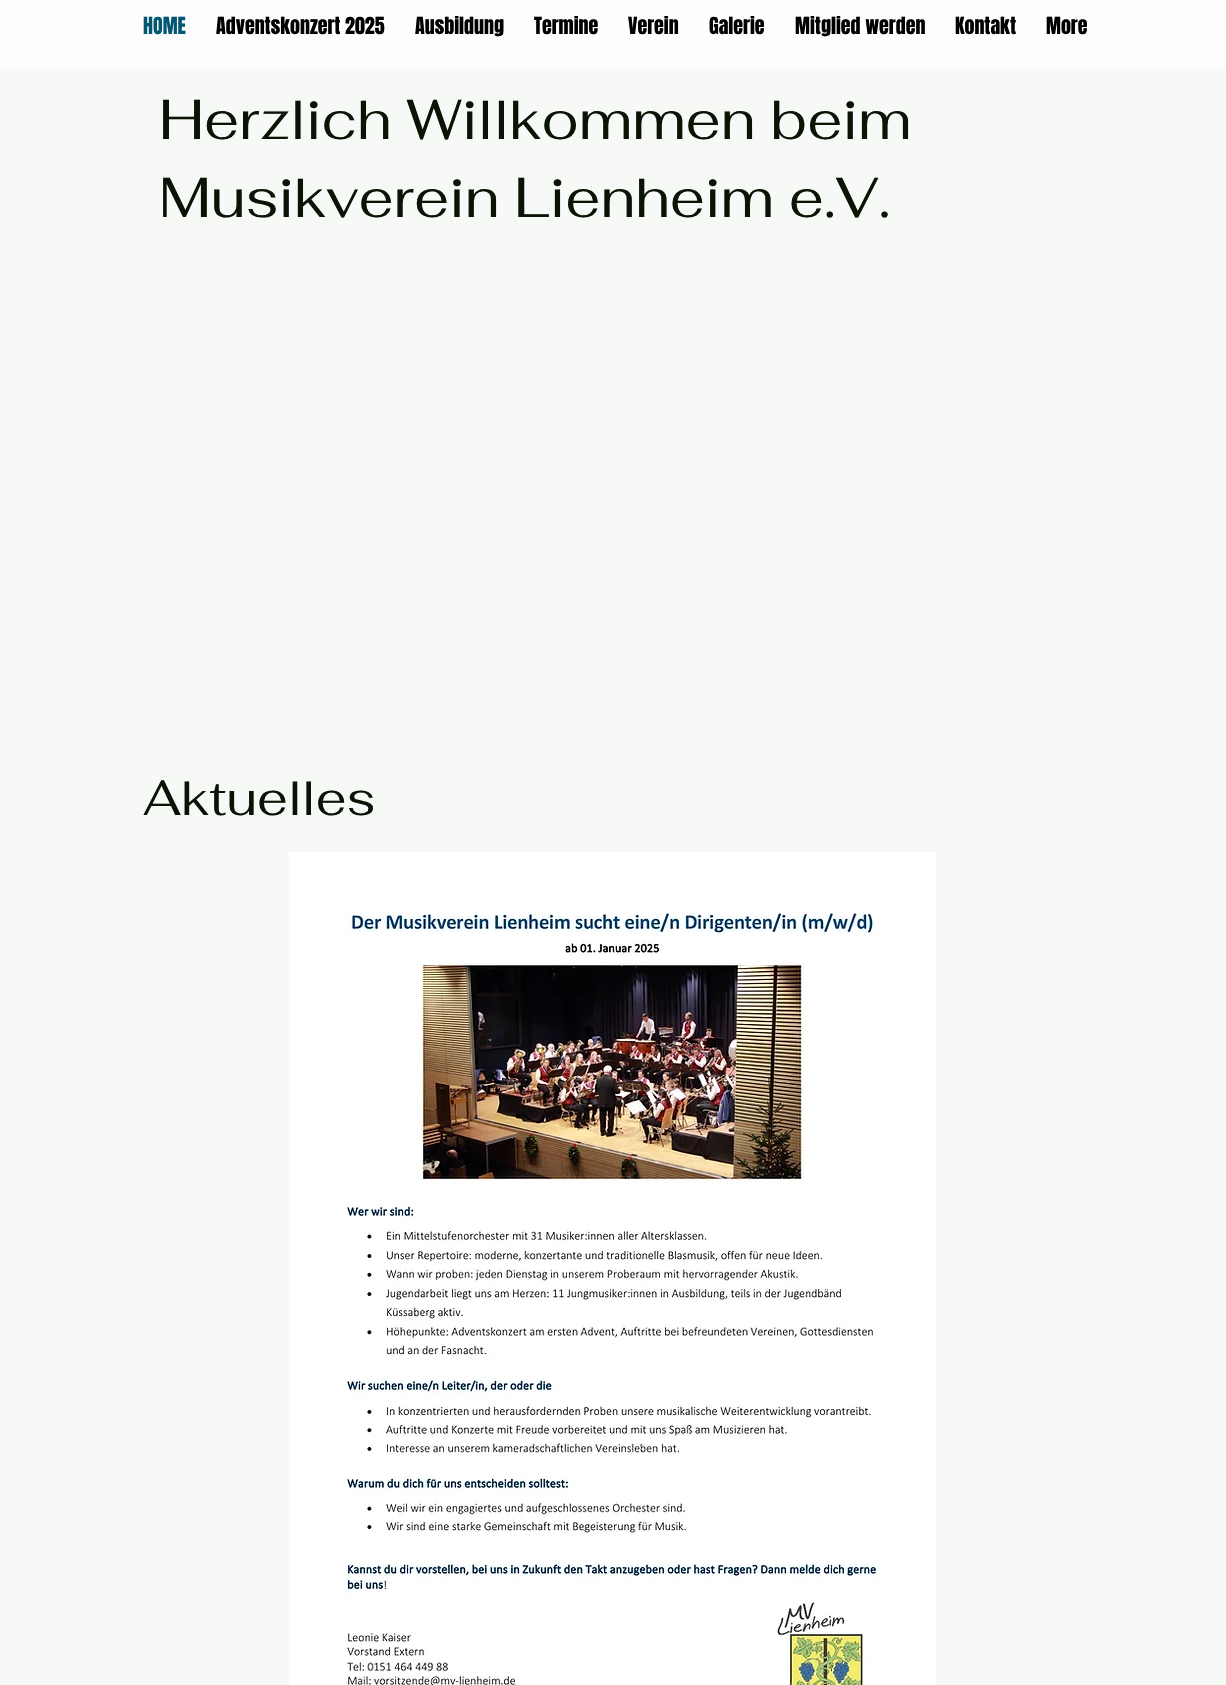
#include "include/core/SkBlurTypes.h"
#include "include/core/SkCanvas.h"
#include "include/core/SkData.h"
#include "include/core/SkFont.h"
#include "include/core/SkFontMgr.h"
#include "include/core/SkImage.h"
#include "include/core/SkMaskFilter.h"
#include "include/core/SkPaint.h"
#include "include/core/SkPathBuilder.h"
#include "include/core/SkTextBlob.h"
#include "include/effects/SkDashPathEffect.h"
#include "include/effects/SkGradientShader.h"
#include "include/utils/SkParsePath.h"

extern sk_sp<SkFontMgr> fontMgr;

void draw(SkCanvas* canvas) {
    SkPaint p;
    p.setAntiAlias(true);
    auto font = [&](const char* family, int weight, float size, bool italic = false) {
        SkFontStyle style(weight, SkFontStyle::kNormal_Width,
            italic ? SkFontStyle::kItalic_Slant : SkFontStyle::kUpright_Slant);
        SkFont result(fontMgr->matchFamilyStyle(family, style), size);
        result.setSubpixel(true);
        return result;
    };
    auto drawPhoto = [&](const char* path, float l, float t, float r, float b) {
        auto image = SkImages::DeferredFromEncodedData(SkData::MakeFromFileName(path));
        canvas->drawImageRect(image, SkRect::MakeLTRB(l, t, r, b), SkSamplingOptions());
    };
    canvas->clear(0xFFF6F9F5);
    p.setColor(0xFFFCFDFC);
    canvas->drawRect(SkRect::MakeLTRB(0, 0, 1226, 69), p);
    auto font1 = font("Anton", 400, 20);
    p.setColor(0xFF035772);
    canvas->drawString("HOME", 143, 34, font1, p);
    p.setColor(0xFF000000);
    {
        const struct { const char* s; float x, y; } items[] = {
            {"Adventskonzert 2025", 216, 34},
            {"Ausbildung", 415, 34},
            {"Termine", 534, 34},
            {"Verein", 628, 34},
            {"Galerie", 709, 34},
            {"Mitglied werden", 795, 34},
            {"Kontakt", 955, 34},
            {"More", 1046, 34},
        };
        for (auto [s, x, y] : items) {
            canvas->drawString(s, x, y, font1, p);
        }
    }
    auto font2 = font("Fahkwang", 400, 56);
    p.setColor(0xFF091405);
    canvas->drawString("Herzlich Willkommen beim", 159, 139, font2, p);
    canvas->drawString("Musikverein Lienheim e.V.", 159, 217, font2, p);
    auto font3 = font("Fahkwang", 400, 49);
    canvas->drawString("Aktuelles", 143, 815, font3, p);
    drawPhoto("media/1.png", 289, 852, 936, 1685);
}
